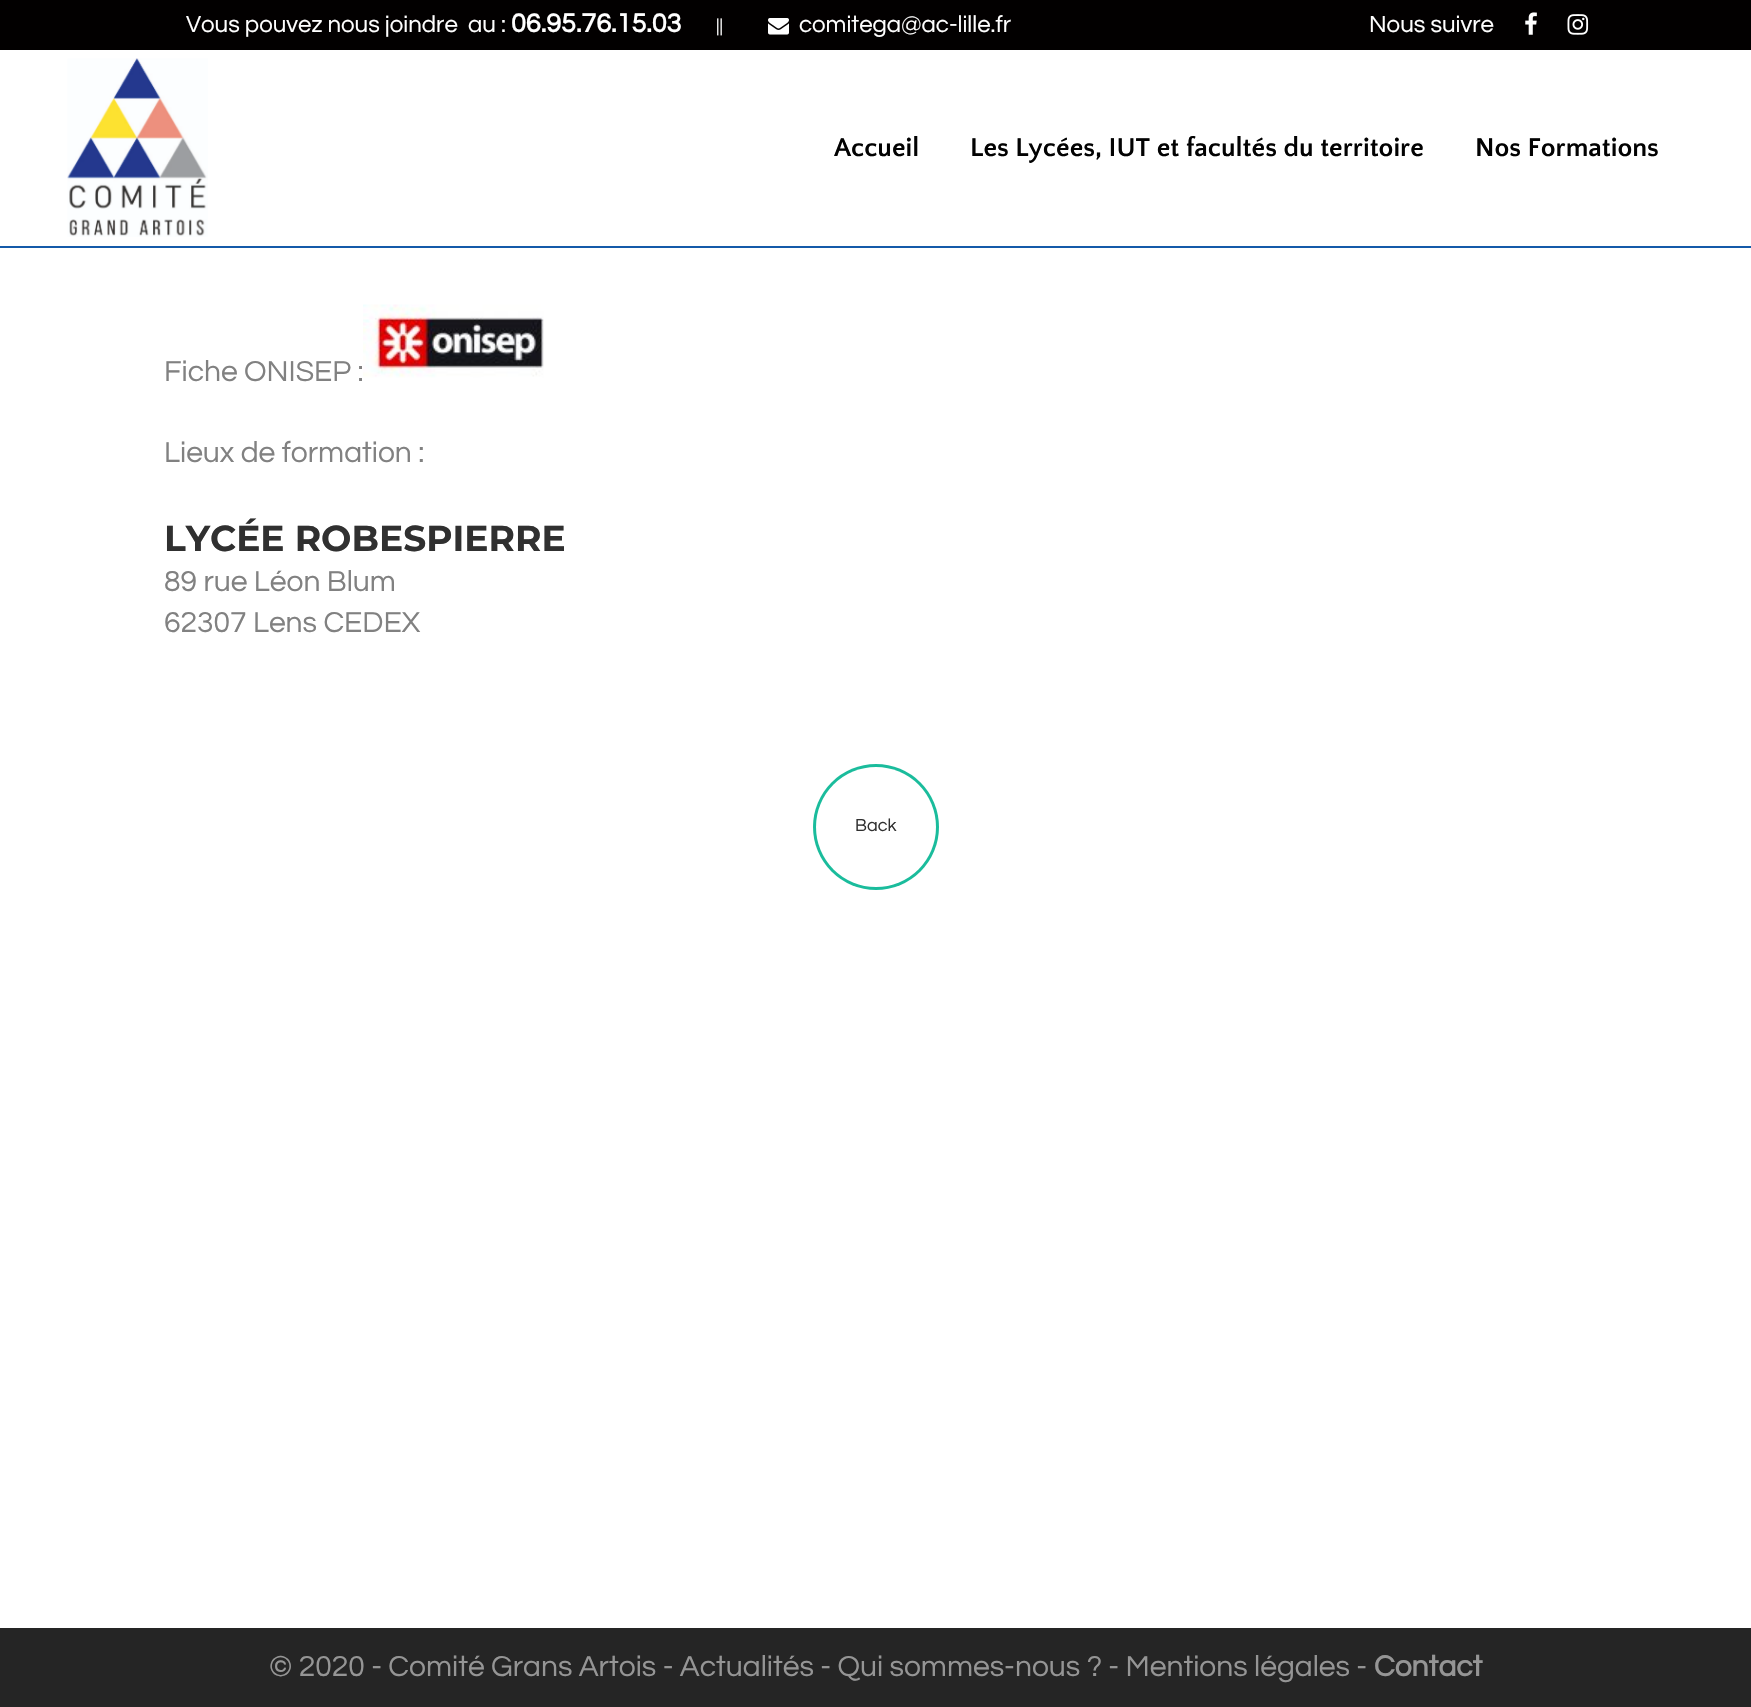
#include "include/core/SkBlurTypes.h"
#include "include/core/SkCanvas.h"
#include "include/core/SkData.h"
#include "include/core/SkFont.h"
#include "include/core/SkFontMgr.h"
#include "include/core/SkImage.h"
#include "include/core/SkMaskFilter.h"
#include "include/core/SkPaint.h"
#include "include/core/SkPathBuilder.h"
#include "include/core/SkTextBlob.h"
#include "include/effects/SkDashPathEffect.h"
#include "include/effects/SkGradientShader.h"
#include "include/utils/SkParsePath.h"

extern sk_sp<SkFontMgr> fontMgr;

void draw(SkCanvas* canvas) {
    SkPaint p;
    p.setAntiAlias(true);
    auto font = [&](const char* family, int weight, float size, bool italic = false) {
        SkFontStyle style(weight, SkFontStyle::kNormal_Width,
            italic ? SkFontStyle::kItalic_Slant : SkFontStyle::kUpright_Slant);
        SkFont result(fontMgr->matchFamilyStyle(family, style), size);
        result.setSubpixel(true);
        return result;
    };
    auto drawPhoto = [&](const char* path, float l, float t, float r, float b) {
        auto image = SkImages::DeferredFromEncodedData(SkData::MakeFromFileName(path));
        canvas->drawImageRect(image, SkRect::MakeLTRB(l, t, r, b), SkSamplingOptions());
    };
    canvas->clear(0xFFFFFFFF);
    p.setColor(0xFF020000);
    canvas->drawRect(SkRect::MakeLTRB(0, 0, 1751, 50), p);
    auto font1 = font("Questrial", 400, 24);
    p.setColor(0xFFFFFFFF);
    canvas->drawString("Vous pouvez nous joindre  au :", 186, 32, font1, p);
    auto font2 = font("Questrial", 700, 27);
    canvas->drawString("06.95.76.15.03", 511, 32, font2, p);
    auto font3 = font("Questrial", 400, 18);
    canvas->drawString("||", 716, 32, font3, p);
    drawPhoto("media/1.png", 768, 18, 789, 35);
    canvas->drawString("comitega@ac-lille.fr", 799, 32, font1, p);
    canvas->drawString("Nous suivre", 1369, 32, font1, p);
    drawPhoto("media/2.png", 1525, 12, 1537, 35);
    drawPhoto("media/3.png", 1567, 14, 1589, 35);
    p.setColor(0xFF145AA9);
    canvas->drawRect(SkRect::MakeLTRB(0, 246, 1751, 248), p);
    drawPhoto("media/4.png", 67, 58, 208, 237);
    auto font4 = font("Quattrocento Sans", 700, 27);
    p.setColor(0xFF020202);
    {
        const struct { const char* s; float x, y; } items[] = {
            {"Accueil", 834, 156},
            {"Les Lycées, IUT et facultés du territoire", 970, 156},
            {"Nos Formations", 1475, 156},
        };
        for (auto [s, x, y] : items) {
            canvas->drawString(s, x, y, font4, p);
        }
    }
    auto font5 = font("Questrial", 400, 30);
    p.setColor(0xFF818181);
    canvas->drawString("Fiche ONISEP :", 164, 381, font5, p);
    drawPhoto("media/5.png", 363, 304, 544, 378);
    canvas->drawString("Lieux de formation :", 164, 462, font5, p);
    auto font6 = font("Montserrat", 700, 36);
    p.setColor(0xFF303030);
    canvas->drawString("LYCÉE ROBESPIERRE", 164, 551, font6, p);
    p.setColor(0xFF818181);
    canvas->drawString("89 rue Léon Blum", 164, 591, font5, p);
    canvas->drawString("62307 Lens CEDEX", 164, 632, font5, p);
    p.setColor(0xFF1ABC9C);
    canvas->drawCircle(876, 827, 63, p);
    p.setColor(0xFFFFFFFF);
    canvas->drawCircle(876, 827, 60, p);
    p.setColor(0xFF303030);
    canvas->drawString("Back", 855, 831, font3, p);
    p.setColor(0xFF252525);
    canvas->drawRect(SkRect::MakeLTRB(0, 1628, 1751, 1707), p);
    p.setColor(0xFF959595);
    canvas->drawString("© 2020 - Comité Grans Artois - Actualités - Qui sommes-nous ? - Mentions légales -", 269, 1676, font5, p);
    auto font7 = font("Questrial", 700, 30);
    canvas->drawString("Contact", 1374, 1676, font7, p);
}
